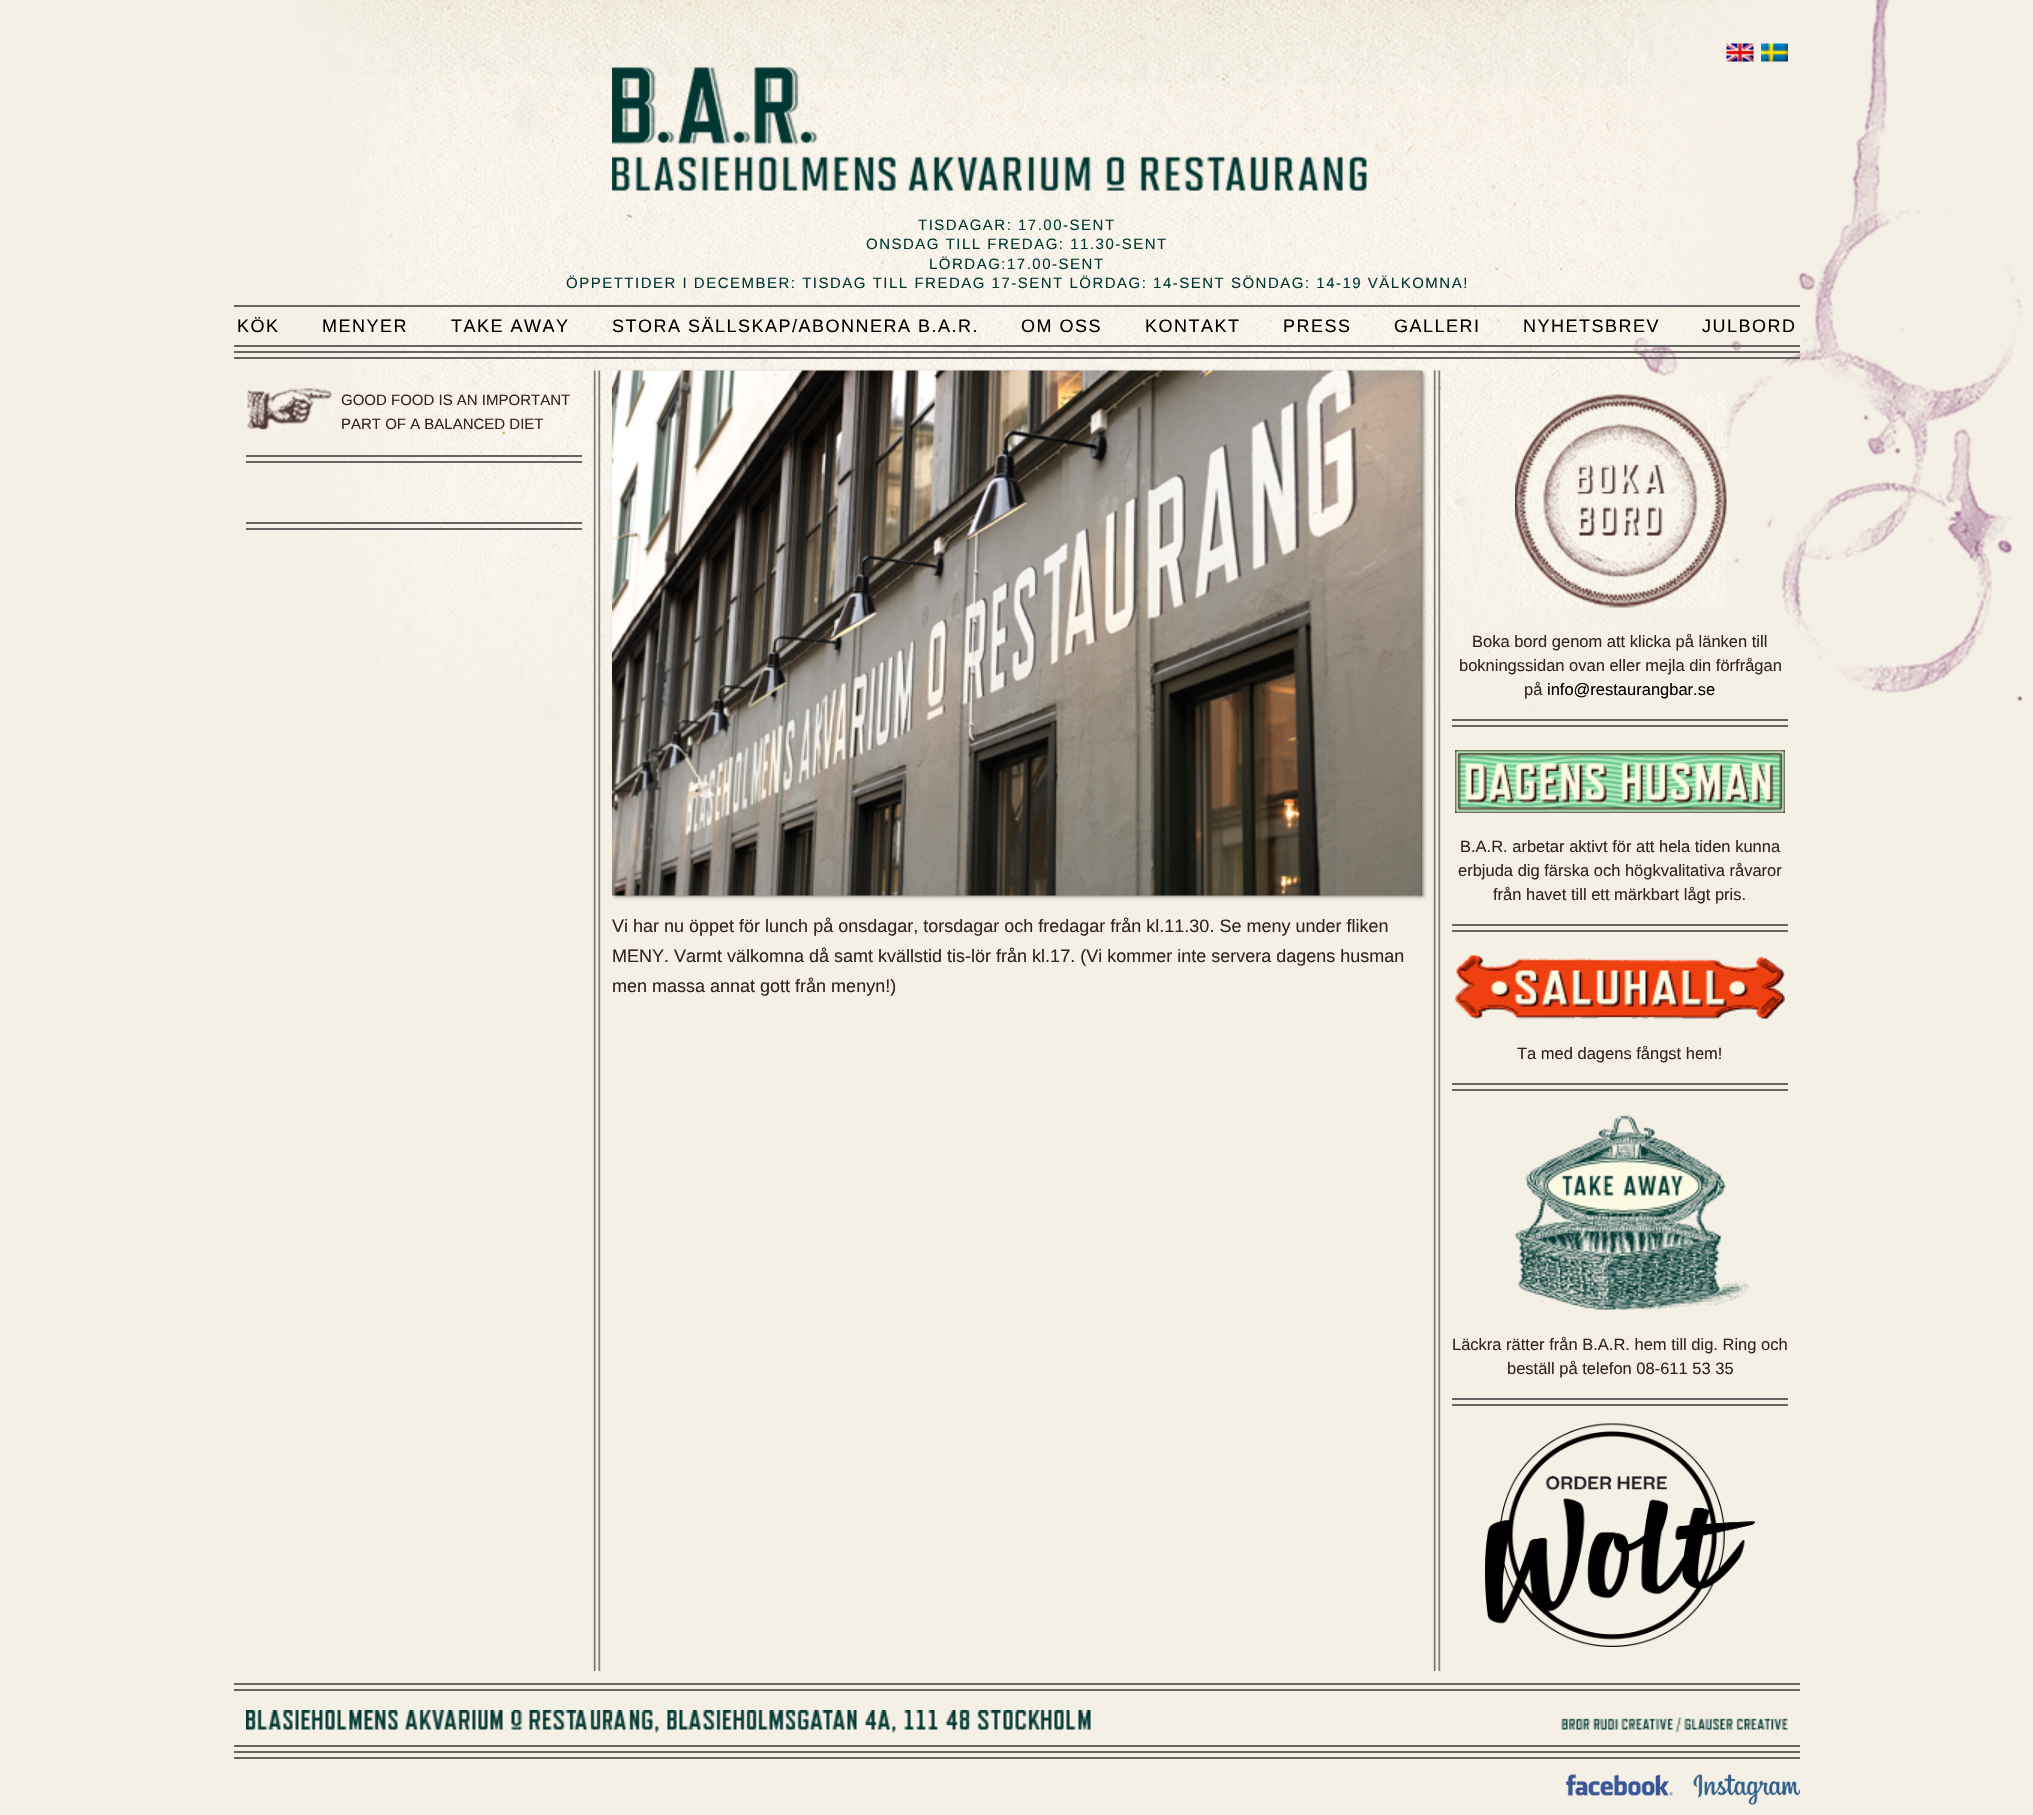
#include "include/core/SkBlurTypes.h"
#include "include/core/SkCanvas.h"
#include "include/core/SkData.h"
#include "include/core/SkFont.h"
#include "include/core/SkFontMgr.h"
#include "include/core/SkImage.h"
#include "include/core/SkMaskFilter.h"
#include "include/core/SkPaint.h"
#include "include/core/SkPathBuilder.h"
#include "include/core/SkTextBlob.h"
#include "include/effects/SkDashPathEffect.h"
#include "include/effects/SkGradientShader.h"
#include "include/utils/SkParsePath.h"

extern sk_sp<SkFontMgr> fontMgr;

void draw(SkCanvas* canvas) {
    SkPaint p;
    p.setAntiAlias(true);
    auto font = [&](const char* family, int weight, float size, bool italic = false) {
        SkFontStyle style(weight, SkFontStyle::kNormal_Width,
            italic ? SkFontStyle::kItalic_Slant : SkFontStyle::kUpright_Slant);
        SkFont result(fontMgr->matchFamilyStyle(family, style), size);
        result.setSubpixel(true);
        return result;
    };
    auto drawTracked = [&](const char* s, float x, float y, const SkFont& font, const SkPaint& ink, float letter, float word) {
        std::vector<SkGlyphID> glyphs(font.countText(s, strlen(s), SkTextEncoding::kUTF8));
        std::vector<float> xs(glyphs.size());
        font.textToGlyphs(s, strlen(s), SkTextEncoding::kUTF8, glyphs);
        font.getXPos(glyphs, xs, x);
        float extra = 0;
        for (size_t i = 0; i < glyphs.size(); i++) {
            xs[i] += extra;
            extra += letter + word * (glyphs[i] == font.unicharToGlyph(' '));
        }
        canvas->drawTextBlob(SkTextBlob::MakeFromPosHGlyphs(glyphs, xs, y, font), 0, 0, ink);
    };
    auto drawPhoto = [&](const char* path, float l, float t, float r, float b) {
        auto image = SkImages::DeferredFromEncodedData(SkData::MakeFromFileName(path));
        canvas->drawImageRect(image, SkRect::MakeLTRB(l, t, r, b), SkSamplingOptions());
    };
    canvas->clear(0xFFF5F0E6);
    drawPhoto("media/1.png", 298, 0, 2022, 720);
    drawPhoto("media/2.png", 1726, 43, 1754, 62);
    drawPhoto("media/3.png", 1761, 43, 1788, 62);
    drawPhoto("media/4.png", 612, 67, 1367, 191);
    auto font1 = font("Liberation Sans", 400, 15);
    p.setColor(0xFF003733);
    {
        const struct { const char* s; float x, y; } items[] = {
            {"TISDAGAR: 17.00-SENT", 918, 230},
            {"ONSDAG TILL FREDAG: 11.30-SENT", 866, 249},
            {"LÖRDAG:17.00-SENT", 929, 269},
            {"ÖPPETTIDER I DECEMBER: TISDAG TILL FREDAG 17-SENT LÖRDAG: 14-SENT SÖNDAG: 14-19 VÄLKOMNA!", 566, 288},
        };
        for (auto [s, x, y] : items) {
            drawTracked(s, x, y, font1, p, 1.5f, 0);
        }
    }
    p.setColor(0xFF666462);
    canvas->drawRect(SkRect::MakeLTRB(234, 305, 1800, 307), p);
    canvas->drawRect(SkRect::MakeLTRB(234, 345, 1800, 347), p);
    auto font2 = font("Liberation Sans", 400, 18);
    p.setColor(0xFF000000);
    {
        const struct { const char* s; float x, y; } items[] = {
            {"KÖK", 237, 332},
            {"MENYER", 322, 332},
            {"TAKE AWAY", 451, 332},
            {"STORA SÄLLSKAP/ABONNERA B.A.R.", 612, 332},
            {"OM OSS", 1021, 332},
            {"KONTAKT", 1145, 332},
            {"PRESS", 1283, 332},
            {"GALLERI", 1394, 332},
            {"NYHETSBREV", 1523, 332},
            {"JULBORD", 1702, 332},
        };
        for (auto [s, x, y] : items) {
            drawTracked(s, x, y, font2, p, 1.5f, 0);
        }
    }
    p.setColor(0xFF666462);
    canvas->drawRect(SkRect::MakeLTRB(234, 351, 1800, 353), p);
    canvas->drawRect(SkRect::MakeLTRB(234, 357, 1800, 359), p);
    drawPhoto("media/5.png", 593, 370, 1441, 1671);
    drawPhoto("media/6.png", 246, 388, 333, 431);
    p.setColor(0xFF352321);
    canvas->drawString("GOOD FOOD IS AN IMPORTANT", 341, 405, font1, p);
    canvas->drawString("PART OF A BALANCED DIET", 341, 429, font1, p);
    {
        const struct { float l, t, r, b; SkColor color; } items[] = {
            {246, 455, 582, 457, 0xFF666462},
            {246, 461, 582, 463, 0xFF666462},
            {246, 522, 582, 524, 0xFF666462},
            {246, 528, 582, 530, 0xFF666462},
        };
        for (auto [l, t, r, b, color] : items) {
            p.setColor(color);
            canvas->drawRect(SkRect::MakeLTRB(l, t, r, b), p);
        }
    }
    p.setColor(0x66000000);
    p.setMaskFilter(SkMaskFilter::MakeBlur(kNormal_SkBlurStyle, 1.5f));
    canvas->drawRect(SkRect::MakeLTRB(614, 372, 1424, 897), p);
    p.setMaskFilter(nullptr);
    drawPhoto("media/7.png", 612, 370, 1422, 896);
    p.setColor(0xFF352321);
    {
        const struct { const char* s; float x, y; } items[] = {
            {"Vi har nu öppet för lunch på onsdagar, torsdagar och fredagar från kl.11.30. Se meny under fliken", 612, 932},
            {"MENY. Varmt välkomna då samt kvällstid tis-lör från kl.17. (Vi kommer inte servera dagens husman", 612, 962},
            {"men massa annat gott från menyn!)", 612, 992},
        };
        for (auto [s, x, y] : items) {
            canvas->drawString(s, x, y, font2, p);
        }
    }
    drawPhoto("media/8.png", 1515, 394, 1727, 608);
    auto font3 = font("Liberation Sans", 400, 16.5f);
    {
        const struct { const char* s; float x, y; } items[] = {
            {"Boka bord genom att klicka på länken till", 1472, 647},
            {"bokningssidan ovan eller mejla din förfrågan", 1459, 671},
            {"på", 1524, 695},
        };
        for (auto [s, x, y] : items) {
            canvas->drawString(s, x, y, font3, p);
        }
    }
    p.setColor(0xFF000000);
    canvas->drawString("info@restaurangbar.se", 1547, 695, font3, p);
    p.setColor(0xFF666462);
    canvas->drawRect(SkRect::MakeLTRB(1452, 719, 1788, 721), p);
    canvas->drawRect(SkRect::MakeLTRB(1452, 725, 1788, 727), p);
    drawPhoto("media/9.png", 1455, 750, 1785, 813);
    p.setColor(0xFF352321);
    {
        const struct { const char* s; float x, y; } items[] = {
            {"B.A.R. arbetar aktivt för att hela tiden kunna", 1460, 852},
            {"erbjuda dig färska och högkvalitativa råvaror", 1458, 876},
            {"från havet till ett märkbart lågt pris.", 1493, 900},
        };
        for (auto [s, x, y] : items) {
            canvas->drawString(s, x, y, font3, p);
        }
    }
    p.setColor(0xFF666462);
    canvas->drawRect(SkRect::MakeLTRB(1452, 924, 1788, 926), p);
    canvas->drawRect(SkRect::MakeLTRB(1452, 930, 1788, 932), p);
    drawPhoto("media/10.png", 1455, 955, 1785, 1019);
    p.setColor(0xFF352321);
    canvas->drawString("Ta med dagens fångst hem!", 1517, 1059, font3, p);
    p.setColor(0xFF666462);
    canvas->drawRect(SkRect::MakeLTRB(1452, 1083, 1788, 1085), p);
    canvas->drawRect(SkRect::MakeLTRB(1452, 1089, 1788, 1091), p);
    drawPhoto("media/11.png", 1514, 1115, 1750, 1311);
    p.setColor(0xFF352321);
    canvas->drawString("Läckra rätter från B.A.R. hem till dig. Ring och", 1452, 1350, font3, p);
    canvas->drawString("beställ på telefon 08-611 53 35", 1507, 1374, font3, p);
    p.setColor(0xFF666462);
    canvas->drawRect(SkRect::MakeLTRB(1452, 1398, 1788, 1400), p);
    canvas->drawRect(SkRect::MakeLTRB(1452, 1404, 1788, 1406), p);
    drawPhoto("media/12.png", 1485, 1423, 1755, 1647);
    {
        const struct { float l, t, r, b; SkColor color; } items[] = {
            {234, 1683, 1800, 1685, 0xFF666462},
            {234, 1745, 1800, 1747, 0xFF666462},
            {234, 1689, 1800, 1691, 0xFF666462},
        };
        for (auto [l, t, r, b, color] : items) {
            p.setColor(color);
            canvas->drawRect(SkRect::MakeLTRB(l, t, r, b), p);
        }
    }
    drawPhoto("media/13.png", 246, 1710, 1091, 1733);
    drawPhoto("media/14.png", 1561, 1717, 1788, 1733);
    canvas->drawRect(SkRect::MakeLTRB(234, 1751, 1800, 1753), p);
    canvas->drawRect(SkRect::MakeLTRB(234, 1757, 1800, 1759), p);
    drawPhoto("media/15.png", 1566, 1774, 1673, 1796);
    drawPhoto("media/16.png", 1693, 1774, 1800, 1805);
}
